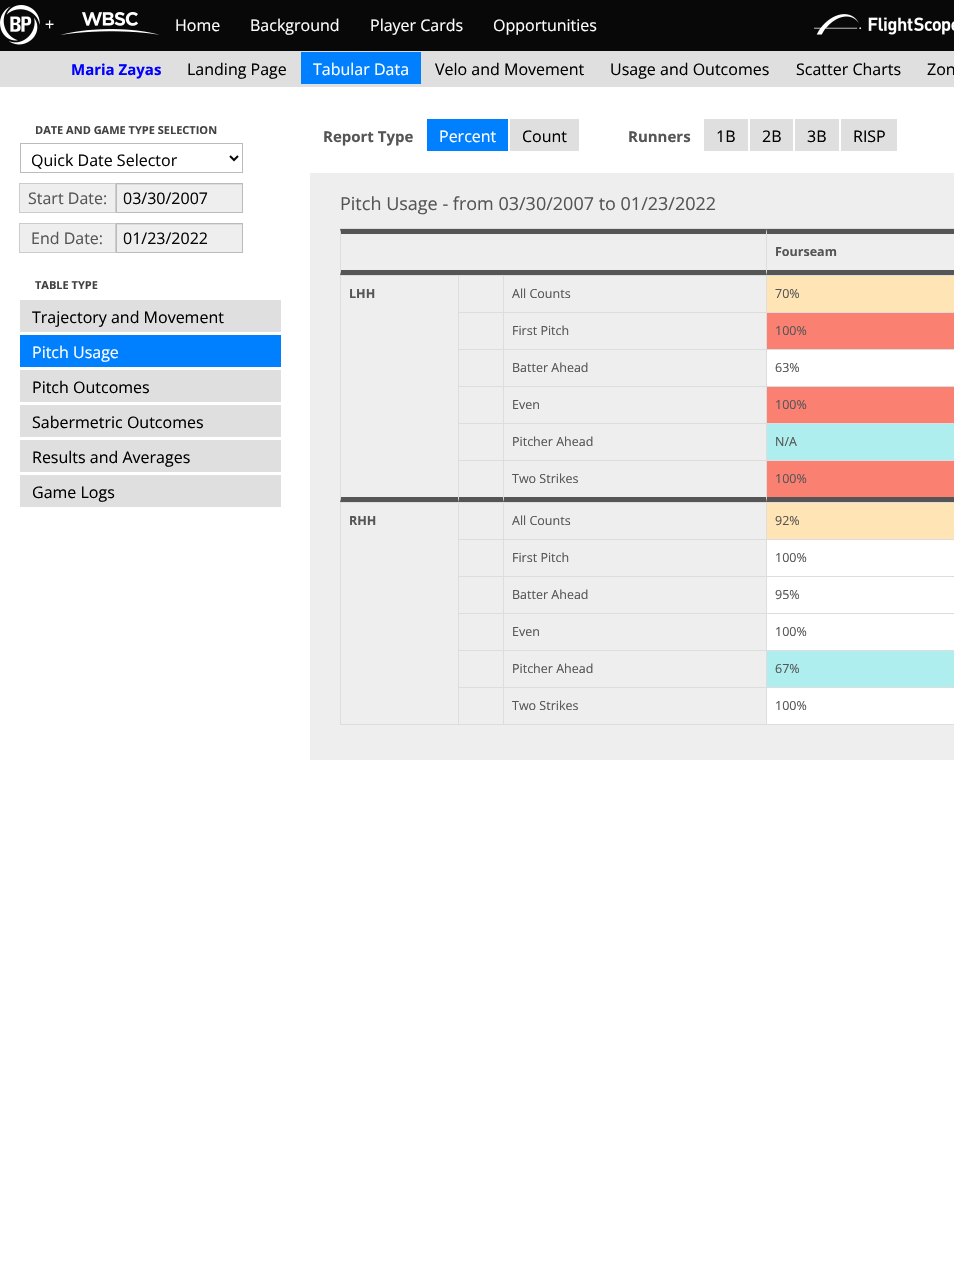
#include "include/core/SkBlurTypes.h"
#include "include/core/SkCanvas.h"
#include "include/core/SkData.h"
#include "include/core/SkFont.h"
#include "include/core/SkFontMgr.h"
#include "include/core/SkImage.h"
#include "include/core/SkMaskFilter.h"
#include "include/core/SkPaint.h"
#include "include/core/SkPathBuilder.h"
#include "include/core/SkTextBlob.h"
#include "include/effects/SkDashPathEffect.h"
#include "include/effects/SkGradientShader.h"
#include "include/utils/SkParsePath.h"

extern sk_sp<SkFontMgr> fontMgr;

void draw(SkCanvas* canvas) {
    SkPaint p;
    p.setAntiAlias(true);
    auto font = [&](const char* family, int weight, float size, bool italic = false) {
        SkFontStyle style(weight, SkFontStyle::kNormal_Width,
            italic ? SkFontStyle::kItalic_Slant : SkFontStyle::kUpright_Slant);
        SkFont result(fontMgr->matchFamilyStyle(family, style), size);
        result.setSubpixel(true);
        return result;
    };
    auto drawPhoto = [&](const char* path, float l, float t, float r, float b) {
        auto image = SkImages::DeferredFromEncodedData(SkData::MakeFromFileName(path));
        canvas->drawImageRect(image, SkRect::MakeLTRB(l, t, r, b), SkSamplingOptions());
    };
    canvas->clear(0xFFFFFFFF);
    p.setColor(0xFF080808);
    canvas->drawRect(SkRect::MakeLTRB(0, 0, 954, 51), p);
    drawPhoto("media/1.png", 0, 5, 40, 45);
    auto font1 = font("Open Sans", 400, 16);
    p.setColor(0xFFFFFFFF);
    canvas->drawString("+", 45, 30, font1, p);
    drawPhoto("media/2.png", 60, 12, 160, 35);
    {
        const struct { const char* s; float x, y; } items[] = {
            {"Home", 175, 31},
            {"Background", 250, 31},
            {"Player Cards", 370, 31},
            {"Opportunities", 493, 31},
        };
        for (auto [s, x, y] : items) {
            canvas->drawString(s, x, y, font1, p);
        }
    }
    drawPhoto("media/3.png", 814, 14, 954, 35);
    p.setColor(0xFFDFDFDF);
    canvas->drawRect(SkRect::MakeLTRB(0, 51, 954, 87), p);
    auto font2 = font("Open Sans", 700, 15);
    p.setColor(0xFF0000FF);
    canvas->drawString("Maria Zayas", 71, 75, font2, p);
    p.setColor(0xFF000000);
    canvas->drawString("Landing Page", 187, 75, font1, p);
    p.setColor(0xFF007FFF);
    canvas->drawRect(SkRect::MakeLTRB(301, 52, 421, 84), p);
    p.setColor(0xFFFFFFFF);
    canvas->drawString("Tabular Data", 313, 75, font1, p);
    p.setColor(0xFF000000);
    {
        const struct { const char* s; float x, y; } items[] = {
            {"Velo and Movement", 435, 75},
            {"Usage and Outcomes", 610, 75},
            {"Scatter Charts", 796, 75},
            {"Zon", 927, 75},
        };
        for (auto [s, x, y] : items) {
            canvas->drawString(s, x, y, font1, p);
        }
    }
    auto font3 = font("Open Sans", 700, 11);
    p.setColor(0xFF424242);
    canvas->drawString("DATE AND GAME TYPE SELECTION", 35, 134, font3, p);
    p.setStyle(SkPaint::kStroke_Style);
    p.setStrokeWidth(1);
    p.setColor(0xFFBBBBBB);
    canvas->drawRect(SkRect::MakeLTRB(20.5f, 143.5f, 242.5f, 172.5f), p);
    p.setStrokeWidth(2);
    p.setColor(0xFF080808);
    canvas->drawPath(SkPathBuilder().moveTo(230, 156).lineTo(234, 160).lineTo(238, 156).detach(), p);
    p.setStyle(SkPaint::kFill_Style);
    canvas->drawString("Quick Date Selector", 31, 166, font1, p);
    p.setColor(0xFFEEEEEE);
    canvas->drawRect(SkRect::MakeLTRB(19.5f, 183.5f, 115.5f, 212.5f), p);
    p.setStyle(SkPaint::kStroke_Style);
    p.setStrokeWidth(1);
    p.setColor(0xFFCCCCCC);
    canvas->drawRect(SkRect::MakeLTRB(19.5f, 183.5f, 115.5f, 212.5f), p);
    p.setStyle(SkPaint::kFill_Style);
    p.setColor(0xFF555555);
    canvas->drawString("Start Date:", 28, 204, font1, p);
    p.setColor(0xFFEEEEEE);
    canvas->drawRect(SkRect::MakeLTRB(117, 185, 242, 212), p);
    p.setColor(0xFFDCDCDC);
    canvas->drawRect(SkRect::MakeLTRB(117, 184, 242, 185), p);
    p.setStyle(SkPaint::kStroke_Style);
    p.setColor(0xFFBBBBBB);
    canvas->drawRect(SkRect::MakeLTRB(116.5f, 183.5f, 242.5f, 212.5f), p);
    p.setStyle(SkPaint::kFill_Style);
    p.setColor(0xFF080808);
    canvas->drawString("03/30/2007", 123, 204, font1, p);
    p.setColor(0xFFEEEEEE);
    canvas->drawRect(SkRect::MakeLTRB(19.5f, 223.5f, 115.5f, 252.5f), p);
    p.setStyle(SkPaint::kStroke_Style);
    p.setColor(0xFFCCCCCC);
    canvas->drawRect(SkRect::MakeLTRB(19.5f, 223.5f, 115.5f, 252.5f), p);
    p.setStyle(SkPaint::kFill_Style);
    p.setColor(0xFF555555);
    canvas->drawString("End Date:", 31, 244, font1, p);
    p.setColor(0xFFEEEEEE);
    canvas->drawRect(SkRect::MakeLTRB(117, 225, 242, 252), p);
    p.setColor(0xFFDCDCDC);
    canvas->drawRect(SkRect::MakeLTRB(117, 224, 242, 225), p);
    p.setStyle(SkPaint::kStroke_Style);
    p.setColor(0xFFBBBBBB);
    canvas->drawRect(SkRect::MakeLTRB(116.5f, 223.5f, 242.5f, 252.5f), p);
    p.setStyle(SkPaint::kFill_Style);
    p.setColor(0xFF080808);
    canvas->drawString("01/23/2022", 123, 244, font1, p);
    p.setColor(0xFF424242);
    canvas->drawString("TABLE TYPE", 35, 289, font3, p);
    p.setColor(0xFFDFDFDF);
    canvas->drawRect(SkRect::MakeLTRB(20, 300, 281, 332), p);
    p.setColor(0xFF000000);
    canvas->drawString("Trajectory and Movement", 32, 323, font1, p);
    p.setColor(0xFF007FFF);
    canvas->drawRect(SkRect::MakeLTRB(20, 335, 281, 367), p);
    p.setColor(0xFFFFFFFF);
    canvas->drawString("Pitch Usage", 32, 358, font1, p);
    p.setColor(0xFFDFDFDF);
    canvas->drawRect(SkRect::MakeLTRB(20, 370, 281, 402), p);
    p.setColor(0xFF000000);
    canvas->drawString("Pitch Outcomes", 32, 393, font1, p);
    p.setColor(0xFFDFDFDF);
    canvas->drawRect(SkRect::MakeLTRB(20, 405, 281, 437), p);
    p.setColor(0xFF000000);
    canvas->drawString("Sabermetric Outcomes", 32, 428, font1, p);
    p.setColor(0xFFDFDFDF);
    canvas->drawRect(SkRect::MakeLTRB(20, 440, 281, 472), p);
    p.setColor(0xFF000000);
    canvas->drawString("Results and Averages", 32, 463, font1, p);
    p.setColor(0xFFDFDFDF);
    canvas->drawRect(SkRect::MakeLTRB(20, 475, 281, 507), p);
    p.setColor(0xFF000000);
    canvas->drawString("Game Logs", 32, 498, font1, p);
    p.setColor(0xFF555555);
    canvas->drawString("Report Type", 323, 142, font2, p);
    p.setColor(0xFF007FFF);
    canvas->drawRect(SkRect::MakeLTRB(427, 119, 508, 151), p);
    p.setColor(0xFFFFFFFF);
    canvas->drawString("Percent", 439, 142, font1, p);
    p.setColor(0xFFDFDFDF);
    canvas->drawRect(SkRect::MakeLTRB(510, 119, 579, 151), p);
    p.setColor(0xFF000000);
    canvas->drawString("Count", 522, 142, font1, p);
    p.setColor(0xFF555555);
    canvas->drawString("Runners", 628, 142, font2, p);
    p.setColor(0xFFDFDFDF);
    canvas->drawRect(SkRect::MakeLTRB(704, 119, 748, 151), p);
    p.setColor(0xFF000000);
    canvas->drawString("1B", 716, 142, font1, p);
    p.setColor(0xFFDFDFDF);
    canvas->drawRect(SkRect::MakeLTRB(750, 119, 793, 151), p);
    p.setColor(0xFF000000);
    canvas->drawString("2B", 762, 142, font1, p);
    p.setColor(0xFFDFDFDF);
    canvas->drawRect(SkRect::MakeLTRB(795, 119, 839, 151), p);
    p.setColor(0xFF000000);
    canvas->drawString("3B", 807, 142, font1, p);
    p.setColor(0xFFDFDFDF);
    canvas->drawRect(SkRect::MakeLTRB(841, 119, 897, 151), p);
    p.setColor(0xFF000000);
    canvas->drawString("RISP", 853, 142, font1, p);
    p.setColor(0xFFEEEEEE);
    canvas->drawRect(SkRect::MakeLTRB(310, 173, 954, 760), p);
    auto font4 = font("Open Sans", 400, 18);
    p.setColor(0xFF555555);
    canvas->drawString("Pitch Usage - from 03/30/2007 to 01/23/2022", 340, 210, font4, p);
    p.setColor(0xFFDDDDDD);
    canvas->drawRect(SkRect::MakeLTRB(340, 228, 954, 229), p);
    canvas->drawRect(SkRect::MakeLTRB(340, 724, 954, 725), p);
    p.setColor(0xFF555555);
    canvas->drawPath(SkPathBuilder().moveTo(340, 229).lineTo(766, 229).lineTo(766, 234).lineTo(341, 234).close().detach(), p);
    canvas->drawPath(SkPathBuilder().moveTo(766, 275).lineTo(340, 275).lineTo(341, 270).lineTo(766, 270).close().detach(), p);
    p.setColor(0xFFDDDDDD);
    canvas->drawPath(SkPathBuilder().moveTo(340, 275).lineTo(340, 229).lineTo(341, 234).lineTo(341, 270).close().detach(), p);
    p.setColor(0xFF555555);
    canvas->drawPath(SkPathBuilder().moveTo(766, 229).lineTo(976, 229).lineTo(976, 234).lineTo(767, 234).close().detach(), p);
    canvas->drawPath(SkPathBuilder().moveTo(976, 275).lineTo(766, 275).lineTo(767, 270).lineTo(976, 270).close().detach(), p);
    p.setColor(0xFFDDDDDD);
    canvas->drawPath(SkPathBuilder().moveTo(766, 275).lineTo(766, 229).lineTo(767, 234).lineTo(767, 270).close().detach(), p);
    auto font5 = font("Open Sans", 700, 12.5f);
    p.setColor(0xFF555555);
    canvas->drawString("Fourseam", 775, 256, font5, p);
    p.setColor(0xFFDDDDDD);
    canvas->drawRect(SkRect::MakeLTRB(340, 275, 954, 276), p);
    p.setColor(0xFF555555);
    canvas->drawPath(SkPathBuilder().moveTo(458, 502).lineTo(340, 502).lineTo(341, 497).lineTo(458, 497).close().detach(), p);
    p.setColor(0xFFDDDDDD);
    canvas->drawPath(SkPathBuilder().moveTo(340, 502).lineTo(340, 275).lineTo(341, 276).lineTo(341, 497).close().detach(), p);
    p.setColor(0xFF555555);
    canvas->drawString("LHH", 349, 298, font5, p);
    p.setColor(0xFFDDDDDD);
    canvas->drawRect(SkRect::MakeLTRB(458, 275, 459, 312), p);
    canvas->drawRect(SkRect::MakeLTRB(503, 275, 504, 312), p);
    auto font6 = font("Open Sans", 400, 12.5f);
    p.setColor(0xFF555555);
    canvas->drawString("All Counts", 512, 298, font6, p);
    p.setColor(0xFFFFE4B5);
    canvas->drawRect(SkRect::MakeLTRB(767, 276, 954, 312), p);
    p.setColor(0xFFDDDDDD);
    canvas->drawRect(SkRect::MakeLTRB(766, 275, 767, 312), p);
    p.setColor(0xFF555555);
    canvas->drawString("70%", 775, 298, font6, p);
    {
        const struct { float l, t, r, b; SkColor color; } items[] = {
            {458, 312, 954, 313, 0xFFDDDDDD},
            {458, 312, 459, 349, 0xFFDDDDDD},
            {503, 312, 504, 349, 0xFFDDDDDD},
        };
        for (auto [l, t, r, b, color] : items) {
            p.setColor(color);
            canvas->drawRect(SkRect::MakeLTRB(l, t, r, b), p);
        }
    }
    p.setColor(0xFF555555);
    canvas->drawString("First Pitch", 512, 335, font6, p);
    p.setColor(0xFFFA8072);
    canvas->drawRect(SkRect::MakeLTRB(767, 313, 954, 349), p);
    p.setColor(0xFFDDDDDD);
    canvas->drawRect(SkRect::MakeLTRB(766, 312, 767, 349), p);
    p.setColor(0xFF555555);
    canvas->drawString("100%", 775, 335, font6, p);
    {
        const struct { float l, t, r, b; SkColor color; } items[] = {
            {458, 349, 954, 350, 0xFFDDDDDD},
            {458, 349, 459, 386, 0xFFDDDDDD},
            {503, 349, 504, 386, 0xFFDDDDDD},
        };
        for (auto [l, t, r, b, color] : items) {
            p.setColor(color);
            canvas->drawRect(SkRect::MakeLTRB(l, t, r, b), p);
        }
    }
    p.setColor(0xFF555555);
    canvas->drawString("Batter Ahead", 512, 372, font6, p);
    p.setColor(0xFFFFFFFF);
    canvas->drawRect(SkRect::MakeLTRB(767, 350, 954, 386), p);
    p.setColor(0xFFDDDDDD);
    canvas->drawRect(SkRect::MakeLTRB(766, 349, 767, 386), p);
    p.setColor(0xFF555555);
    canvas->drawString("63%", 775, 372, font6, p);
    {
        const struct { float l, t, r, b; SkColor color; } items[] = {
            {458, 386, 954, 387, 0xFFDDDDDD},
            {458, 386, 459, 423, 0xFFDDDDDD},
            {503, 386, 504, 423, 0xFFDDDDDD},
        };
        for (auto [l, t, r, b, color] : items) {
            p.setColor(color);
            canvas->drawRect(SkRect::MakeLTRB(l, t, r, b), p);
        }
    }
    p.setColor(0xFF555555);
    canvas->drawString("Even", 512, 409, font6, p);
    p.setColor(0xFFFA8072);
    canvas->drawRect(SkRect::MakeLTRB(767, 387, 954, 423), p);
    p.setColor(0xFFDDDDDD);
    canvas->drawRect(SkRect::MakeLTRB(766, 386, 767, 423), p);
    p.setColor(0xFF555555);
    canvas->drawString("100%", 775, 409, font6, p);
    {
        const struct { float l, t, r, b; SkColor color; } items[] = {
            {458, 423, 954, 424, 0xFFDDDDDD},
            {458, 423, 459, 460, 0xFFDDDDDD},
            {503, 423, 504, 460, 0xFFDDDDDD},
        };
        for (auto [l, t, r, b, color] : items) {
            p.setColor(color);
            canvas->drawRect(SkRect::MakeLTRB(l, t, r, b), p);
        }
    }
    p.setColor(0xFF555555);
    canvas->drawString("Pitcher Ahead", 512, 446, font6, p);
    p.setColor(0xFFAFEEEE);
    canvas->drawRect(SkRect::MakeLTRB(767, 424, 954, 460), p);
    p.setColor(0xFFDDDDDD);
    canvas->drawRect(SkRect::MakeLTRB(766, 423, 767, 460), p);
    p.setColor(0xFF555555);
    canvas->drawString("N/A", 775, 446, font6, p);
    p.setColor(0xFFDDDDDD);
    canvas->drawRect(SkRect::MakeLTRB(458, 460, 954, 461), p);
    p.setColor(0xFF555555);
    canvas->drawPath(SkPathBuilder().moveTo(503, 502).lineTo(458, 502).lineTo(459, 497).lineTo(503, 497).close().detach(), p);
    p.setColor(0xFFDDDDDD);
    canvas->drawPath(SkPathBuilder().moveTo(458, 502).lineTo(458, 460).lineTo(459, 461).lineTo(459, 497).close().detach(), p);
    p.setColor(0xFF555555);
    canvas->drawPath(SkPathBuilder().moveTo(766, 502).lineTo(503, 502).lineTo(504, 497).lineTo(766, 497).close().detach(), p);
    p.setColor(0xFFDDDDDD);
    canvas->drawPath(SkPathBuilder().moveTo(503, 502).lineTo(503, 460).lineTo(504, 461).lineTo(504, 497).close().detach(), p);
    p.setColor(0xFF555555);
    canvas->drawString("Two Strikes", 512, 483, font6, p);
    p.setColor(0xFFFA8072);
    canvas->drawRect(SkRect::MakeLTRB(766, 461, 954, 502), p);
    p.setColor(0xFF555555);
    canvas->drawPath(SkPathBuilder().moveTo(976, 502).lineTo(766, 502).lineTo(767, 497).lineTo(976, 497).close().detach(), p);
    p.setColor(0xFFDDDDDD);
    canvas->drawPath(SkPathBuilder().moveTo(766, 502).lineTo(766, 460).lineTo(767, 461).lineTo(767, 497).close().detach(), p);
    p.setColor(0xFF555555);
    canvas->drawString("100%", 775, 483, font6, p);
    p.setColor(0xFFDDDDDD);
    canvas->drawRect(SkRect::MakeLTRB(340, 502, 954, 503), p);
    canvas->drawRect(SkRect::MakeLTRB(340, 502, 341, 724), p);
    p.setColor(0xFF555555);
    canvas->drawString("RHH", 349, 525, font5, p);
    p.setColor(0xFFDDDDDD);
    canvas->drawRect(SkRect::MakeLTRB(458, 502, 459, 539), p);
    canvas->drawRect(SkRect::MakeLTRB(503, 502, 504, 539), p);
    p.setColor(0xFF555555);
    canvas->drawString("All Counts", 512, 525, font6, p);
    p.setColor(0xFFFFE4B5);
    canvas->drawRect(SkRect::MakeLTRB(767, 503, 954, 539), p);
    p.setColor(0xFFDDDDDD);
    canvas->drawRect(SkRect::MakeLTRB(766, 502, 767, 539), p);
    p.setColor(0xFF555555);
    canvas->drawString("92%", 775, 525, font6, p);
    {
        const struct { float l, t, r, b; SkColor color; } items[] = {
            {458, 539, 954, 540, 0xFFDDDDDD},
            {458, 539, 459, 576, 0xFFDDDDDD},
            {503, 539, 504, 576, 0xFFDDDDDD},
        };
        for (auto [l, t, r, b, color] : items) {
            p.setColor(color);
            canvas->drawRect(SkRect::MakeLTRB(l, t, r, b), p);
        }
    }
    p.setColor(0xFF555555);
    canvas->drawString("First Pitch", 512, 562, font6, p);
    p.setColor(0xFFFFFFFF);
    canvas->drawRect(SkRect::MakeLTRB(767, 540, 954, 576), p);
    p.setColor(0xFFDDDDDD);
    canvas->drawRect(SkRect::MakeLTRB(766, 539, 767, 576), p);
    p.setColor(0xFF555555);
    canvas->drawString("100%", 775, 562, font6, p);
    {
        const struct { float l, t, r, b; SkColor color; } items[] = {
            {458, 576, 954, 577, 0xFFDDDDDD},
            {458, 576, 459, 613, 0xFFDDDDDD},
            {503, 576, 504, 613, 0xFFDDDDDD},
        };
        for (auto [l, t, r, b, color] : items) {
            p.setColor(color);
            canvas->drawRect(SkRect::MakeLTRB(l, t, r, b), p);
        }
    }
    p.setColor(0xFF555555);
    canvas->drawString("Batter Ahead", 512, 599, font6, p);
    p.setColor(0xFFFFFFFF);
    canvas->drawRect(SkRect::MakeLTRB(767, 577, 954, 613), p);
    p.setColor(0xFFDDDDDD);
    canvas->drawRect(SkRect::MakeLTRB(766, 576, 767, 613), p);
    p.setColor(0xFF555555);
    canvas->drawString("95%", 775, 599, font6, p);
    {
        const struct { float l, t, r, b; SkColor color; } items[] = {
            {458, 613, 954, 614, 0xFFDDDDDD},
            {458, 613, 459, 650, 0xFFDDDDDD},
            {503, 613, 504, 650, 0xFFDDDDDD},
        };
        for (auto [l, t, r, b, color] : items) {
            p.setColor(color);
            canvas->drawRect(SkRect::MakeLTRB(l, t, r, b), p);
        }
    }
    p.setColor(0xFF555555);
    canvas->drawString("Even", 512, 636, font6, p);
    p.setColor(0xFFFFFFFF);
    canvas->drawRect(SkRect::MakeLTRB(767, 614, 954, 650), p);
    p.setColor(0xFFDDDDDD);
    canvas->drawRect(SkRect::MakeLTRB(766, 613, 767, 650), p);
    p.setColor(0xFF555555);
    canvas->drawString("100%", 775, 636, font6, p);
    {
        const struct { float l, t, r, b; SkColor color; } items[] = {
            {458, 650, 954, 651, 0xFFDDDDDD},
            {458, 650, 459, 687, 0xFFDDDDDD},
            {503, 650, 504, 687, 0xFFDDDDDD},
        };
        for (auto [l, t, r, b, color] : items) {
            p.setColor(color);
            canvas->drawRect(SkRect::MakeLTRB(l, t, r, b), p);
        }
    }
    p.setColor(0xFF555555);
    canvas->drawString("Pitcher Ahead", 512, 673, font6, p);
    p.setColor(0xFFAFEEEE);
    canvas->drawRect(SkRect::MakeLTRB(767, 651, 954, 687), p);
    p.setColor(0xFFDDDDDD);
    canvas->drawRect(SkRect::MakeLTRB(766, 650, 767, 687), p);
    p.setColor(0xFF555555);
    canvas->drawString("67%", 775, 673, font6, p);
    {
        const struct { float l, t, r, b; SkColor color; } items[] = {
            {458, 687, 954, 688, 0xFFDDDDDD},
            {458, 687, 459, 724, 0xFFDDDDDD},
            {503, 687, 504, 724, 0xFFDDDDDD},
        };
        for (auto [l, t, r, b, color] : items) {
            p.setColor(color);
            canvas->drawRect(SkRect::MakeLTRB(l, t, r, b), p);
        }
    }
    p.setColor(0xFF555555);
    canvas->drawString("Two Strikes", 512, 710, font6, p);
    p.setColor(0xFFFFFFFF);
    canvas->drawRect(SkRect::MakeLTRB(767, 688, 954, 724), p);
    p.setColor(0xFFDDDDDD);
    canvas->drawRect(SkRect::MakeLTRB(766, 687, 767, 724), p);
    p.setColor(0xFF555555);
    canvas->drawString("100%", 775, 710, font6, p);
}
